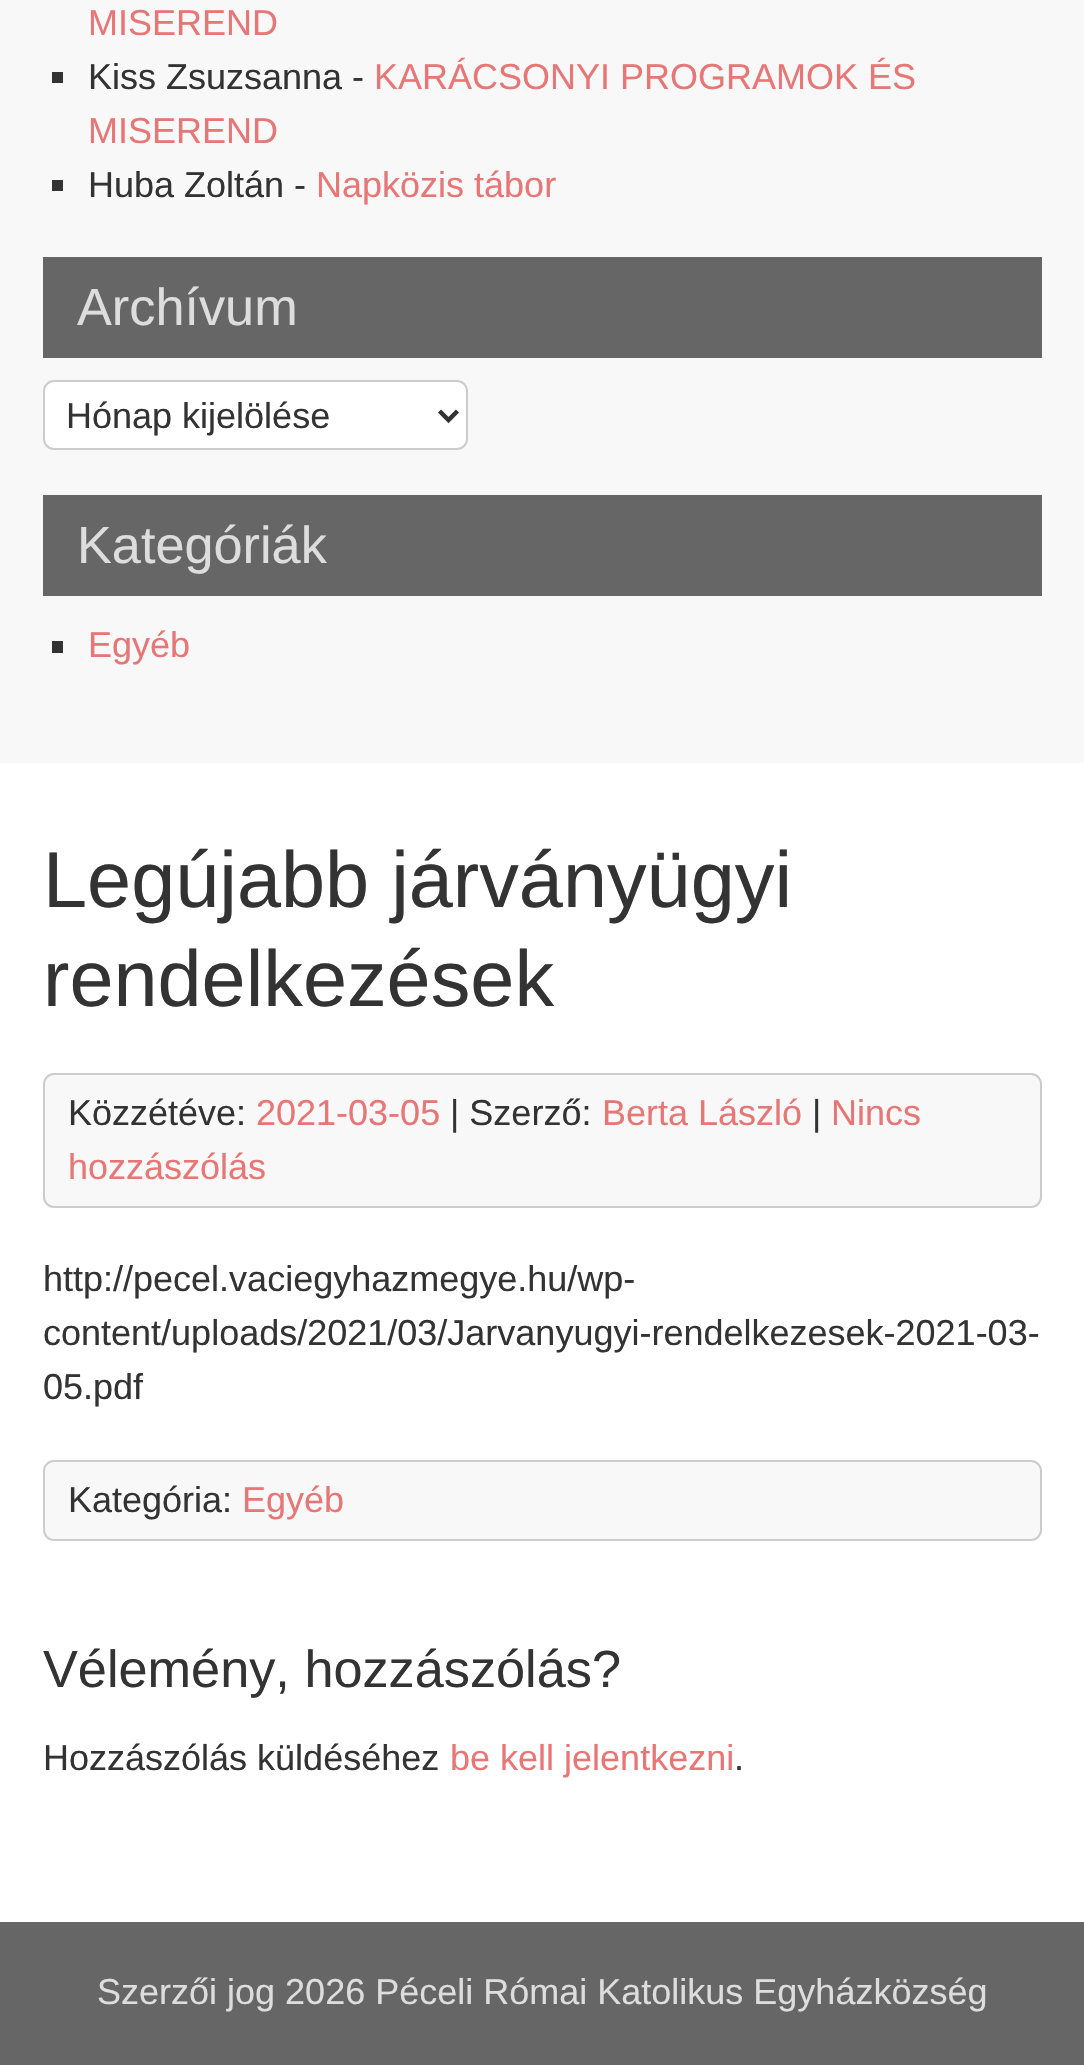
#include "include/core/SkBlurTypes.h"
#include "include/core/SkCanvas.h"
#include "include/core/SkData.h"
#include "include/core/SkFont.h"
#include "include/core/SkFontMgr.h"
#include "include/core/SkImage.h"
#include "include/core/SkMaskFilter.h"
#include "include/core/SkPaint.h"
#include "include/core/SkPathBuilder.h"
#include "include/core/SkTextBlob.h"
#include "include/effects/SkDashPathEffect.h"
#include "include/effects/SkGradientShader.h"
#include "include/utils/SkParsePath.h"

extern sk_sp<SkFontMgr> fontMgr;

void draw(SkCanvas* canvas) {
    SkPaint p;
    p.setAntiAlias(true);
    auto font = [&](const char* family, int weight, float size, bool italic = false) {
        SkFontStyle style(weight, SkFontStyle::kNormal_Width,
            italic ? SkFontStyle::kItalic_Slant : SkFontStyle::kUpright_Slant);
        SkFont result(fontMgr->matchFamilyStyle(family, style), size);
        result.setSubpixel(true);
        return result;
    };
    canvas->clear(0xFFFFFFFF);
    p.setColor(0xFFF8F8F8);
    canvas->drawRect(SkRect::MakeLTRB(0, 0, 1084, 763), p);
    auto font1 = font("Liberation Sans", 400, 36);
    p.setColor(0xFFE77776);
    canvas->drawString("MISEREND", 88, 35, font1, p);
    p.setColor(0xFF333333);
    canvas->drawRect(SkRect::MakeLTRB(52, 72, 63, 83), p);
    canvas->drawString("Kiss Zsuzsanna -", 88, 89, font1, p);
    p.setColor(0xFFE77776);
    canvas->drawString("KARÁCSONYI PROGRAMOK ÉS", 374, 89, font1, p);
    canvas->drawString("MISEREND", 88, 143, font1, p);
    p.setColor(0xFF333333);
    canvas->drawRect(SkRect::MakeLTRB(52, 180, 63, 191), p);
    canvas->drawString("Huba Zoltán -", 88, 197, font1, p);
    p.setColor(0xFFE77776);
    canvas->drawString("Napközis tábor", 316, 197, font1, p);
    p.setColor(0xFF666666);
    canvas->drawRect(SkRect::MakeLTRB(43, 257, 1042, 358), p);
    auto font2 = font("Liberation Sans", 400, 52.25f);
    p.setColor(0xFFDDDDDD);
    canvas->drawString("Archívum", 77, 325, font2, p);
    p.setColor(0xFFFFFFFF);
    canvas->drawRoundRect(SkRect::MakeLTRB(44, 381, 467, 449), 10, 10, p);
    p.setStyle(SkPaint::kStroke_Style);
    p.setStrokeWidth(2);
    p.setColor(0xFFCCCCCC);
    canvas->drawRoundRect(SkRect::MakeLTRB(44, 381, 467, 449), 10, 10, p);
    p.setStrokeWidth(4.5f);
    p.setColor(0xFF333333);
    canvas->drawPath(SkPathBuilder().moveTo(439.5f, 411).lineTo(448.5f, 420).lineTo(457.5f, 411).detach(), p);
    p.setStyle(SkPaint::kFill_Style);
    canvas->drawString("Hónap kijelölése", 66, 428, font1, p);
    p.setColor(0xFF666666);
    canvas->drawRect(SkRect::MakeLTRB(43, 495, 1042, 596), p);
    p.setColor(0xFFDDDDDD);
    canvas->drawString("Kategóriák", 77, 563, font2, p);
    p.setColor(0xFF333333);
    canvas->drawRect(SkRect::MakeLTRB(52, 641, 63, 653), p);
    p.setColor(0xFFE77776);
    canvas->drawString("Egyéb", 88, 657, font1, p);
    auto font3 = font("Liberation Sans", 400, 79.25f);
    p.setColor(0xFF333333);
    canvas->drawString("Legújabb járványügyi", 43, 907, font3, p);
    canvas->drawString("rendelkezések", 43, 1006, font3, p);
    p.setColor(0xFFF8F8F8);
    canvas->drawRoundRect(SkRect::MakeLTRB(44, 1074, 1041, 1207), 10, 10, p);
    p.setStyle(SkPaint::kStroke_Style);
    p.setStrokeWidth(2);
    p.setColor(0xFFCCCCCC);
    canvas->drawRoundRect(SkRect::MakeLTRB(44, 1074, 1041, 1207), 10, 10, p);
    p.setStyle(SkPaint::kFill_Style);
    p.setColor(0xFF333333);
    canvas->drawString("Közzétéve:", 68, 1125, font1, p);
    p.setColor(0xFFE77776);
    canvas->drawString("2021-03-05", 256, 1125, font1, p);
    p.setColor(0xFF333333);
    canvas->drawString("| Szerző:", 450, 1125, font1, p);
    p.setColor(0xFFE77776);
    canvas->drawString("Berta László", 602, 1125, font1, p);
    p.setColor(0xFF333333);
    canvas->drawString("|", 812, 1125, font1, p);
    p.setColor(0xFFE77776);
    canvas->drawString("Nincs", 831, 1125, font1, p);
    canvas->drawString("hozzászólás", 68, 1179, font1, p);
    p.setColor(0xFF333333);
    {
        const struct { const char* s; float x, y; } items[] = {
            {"http://pecel.vaciegyhazmegye.hu/wp-", 43, 1291},
            {"content/uploads/2021/03/Jarvanyugyi-rendelkezesek-2021-03-", 43, 1345},
            {"05.pdf", 43, 1399},
        };
        for (auto [s, x, y] : items) {
            canvas->drawString(s, x, y, font1, p);
        }
    }
    p.setColor(0xFFF8F8F8);
    canvas->drawRoundRect(SkRect::MakeLTRB(44, 1461, 1041, 1540), 10, 10, p);
    p.setStyle(SkPaint::kStroke_Style);
    p.setColor(0xFFCCCCCC);
    canvas->drawRoundRect(SkRect::MakeLTRB(44, 1461, 1041, 1540), 10, 10, p);
    p.setStyle(SkPaint::kFill_Style);
    p.setColor(0xFF333333);
    canvas->drawString("Kategória:", 68, 1512, font1, p);
    p.setColor(0xFFE77776);
    canvas->drawString("Egyéb", 242, 1512, font1, p);
    p.setColor(0xFF333333);
    canvas->drawString("Vélemény, hozzászólás?", 43, 1687, font2, p);
    canvas->drawString("Hozzászólás küldéséhez", 43, 1770, font1, p);
    p.setColor(0xFFE77776);
    canvas->drawString("be kell jelentkezni", 450, 1770, font1, p);
    p.setColor(0xFF333333);
    canvas->drawString(".", 734, 1770, font1, p);
    p.setColor(0xFF666666);
    canvas->drawRect(SkRect::MakeLTRB(0, 1922, 1084, 2065), p);
    p.setColor(0xFFDDDDDD);
    canvas->drawString("Szerzői jog 2026 Péceli Római Katolikus Egyházközség", 97, 2004, font1, p);
}
